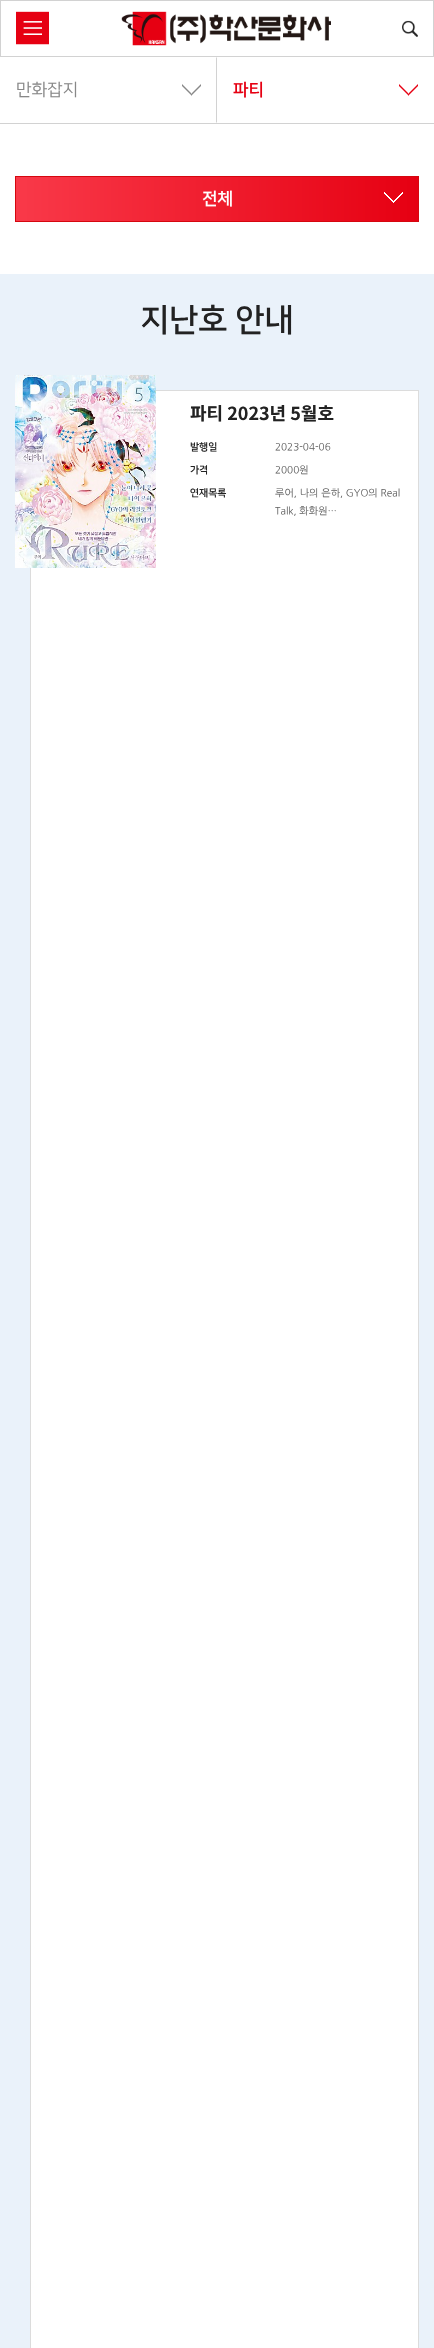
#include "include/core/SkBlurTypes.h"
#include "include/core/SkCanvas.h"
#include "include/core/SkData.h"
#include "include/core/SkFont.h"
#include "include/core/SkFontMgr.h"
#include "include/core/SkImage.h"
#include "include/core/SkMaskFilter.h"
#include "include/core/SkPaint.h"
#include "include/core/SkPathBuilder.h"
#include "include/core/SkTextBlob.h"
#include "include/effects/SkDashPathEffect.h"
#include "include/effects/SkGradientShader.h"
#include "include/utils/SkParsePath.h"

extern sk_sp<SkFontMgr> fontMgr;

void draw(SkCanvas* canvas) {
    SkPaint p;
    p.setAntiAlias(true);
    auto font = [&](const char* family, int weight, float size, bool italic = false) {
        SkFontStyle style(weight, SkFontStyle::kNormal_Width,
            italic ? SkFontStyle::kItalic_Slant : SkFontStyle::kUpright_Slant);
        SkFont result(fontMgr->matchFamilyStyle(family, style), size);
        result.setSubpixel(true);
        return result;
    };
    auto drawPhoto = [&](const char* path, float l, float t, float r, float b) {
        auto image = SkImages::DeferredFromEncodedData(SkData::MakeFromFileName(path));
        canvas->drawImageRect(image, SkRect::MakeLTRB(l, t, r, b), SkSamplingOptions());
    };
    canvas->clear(0xFFFFFFFF);
    p.setStyle(SkPaint::kStroke_Style);
    p.setStrokeWidth(1);
    p.setColor(0xFFD2D2D2);
    canvas->drawRect(SkRect::MakeLTRB(0.5f, 0.5f, 433.5f, 56.5f), p);
    drawPhoto("media/1.png", 16, 11, 49, 45);
    drawPhoto("media/2.png", 121, 11, 331, 46);
    drawPhoto("media/3.png", 402, 20, 418, 37);
    p.setStyle(SkPaint::kFill_Style);
    canvas->drawRect(SkRect::MakeLTRB(0, 123, 434, 124), p);
    canvas->drawPath(SkPathBuilder().moveTo(217, 57).lineTo(217, 123).lineTo(216, 122).lineTo(216, 58).close().detach(), p);
    auto font1 = font("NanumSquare", 400, 17);
    p.setColor(0xFF888888);
    canvas->drawString("만화잡지", 16, 95, font1, p);
    drawPhoto("media/4.png", 182, 84, 201, 96);
    auto font2 = font("NanumSquare", 700, 17);
    p.setColor(0xFFE60012);
    canvas->drawString("파티", 233, 95, font2, p);
    drawPhoto("media/5.png", 399, 84, 418, 96);
    {
        const SkColor colors[] = {0xFFF93949, 0xFFE60012};
        const float stops[] = {0, 1};
        const SkPoint ends[] = {{16, 199}, {418, 199}};
        p.setShader(SkGradientShader::MakeLinear(ends, colors, stops, 2, SkTileMode::kClamp));
        p.setAlpha(255);
    }
    canvas->drawRect(SkRect::MakeLTRB(16, 177, 418, 221), p);
    p.setStyle(SkPaint::kStroke_Style);
    p.setShader(nullptr);
    p.setColor(0xFFD5070F);
    canvas->drawRect(SkRect::MakeLTRB(15.5f, 176.5f, 418.5f, 221.5f), p);
    p.setStyle(SkPaint::kFill_Style);
    p.setColor(0xFFFFFFFF);
    canvas->drawString("전체", 202, 204, font2, p);
    drawPhoto("media/6.png", 384, 192, 403, 203);
    p.setColor(0xFFEAF2FA);
    canvas->drawRect(SkRect::MakeLTRB(0, 274, 434, 2348), p);
    auto font3 = font("NanumSquare", 700, 32);
    p.setColor(0xFF222222);
    canvas->drawString("지난호 안내", 140, 330, font3, p);
    p.setColor(0xFFFFFFFF);
    canvas->drawRect(SkRect::MakeLTRB(30.5f, 390.5f, 418.5f, 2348.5f), p);
    p.setStyle(SkPaint::kStroke_Style);
    p.setColor(0xFFDCDCDC);
    canvas->drawRect(SkRect::MakeLTRB(30.5f, 390.5f, 418.5f, 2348.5f), p);
    drawPhoto("media/7.png", 15, 375, 156, 568);
    auto font4 = font("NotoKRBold", 700, 18);
    p.setStyle(SkPaint::kFill_Style);
    p.setColor(0xFF222222);
    canvas->drawString("파티 2023년 5월호", 190, 420, font4, p);
    auto font5 = font("NanumSquare", 700, 10);
    canvas->drawString("발행일", 190, 450, font5, p);
    auto font6 = font("NanumGothic", 400, 10);
    p.setColor(0xFF666666);
    canvas->drawString("2023-04-06", 275, 450, font6, p);
    p.setColor(0xFF222222);
    canvas->drawString("가격", 190, 473, font5, p);
    p.setColor(0xFF666666);
    canvas->drawString("2000원", 275, 473, font6, p);
    p.setColor(0xFF222222);
    canvas->drawString("연재목록", 190, 496, font5, p);
    p.setColor(0xFF666666);
    canvas->drawString("루어, 나의 은하, GYO의 Real", 275, 496, font6, p);
    canvas->drawString("Talk, 화화원…", 275, 514, font6, p);
}
